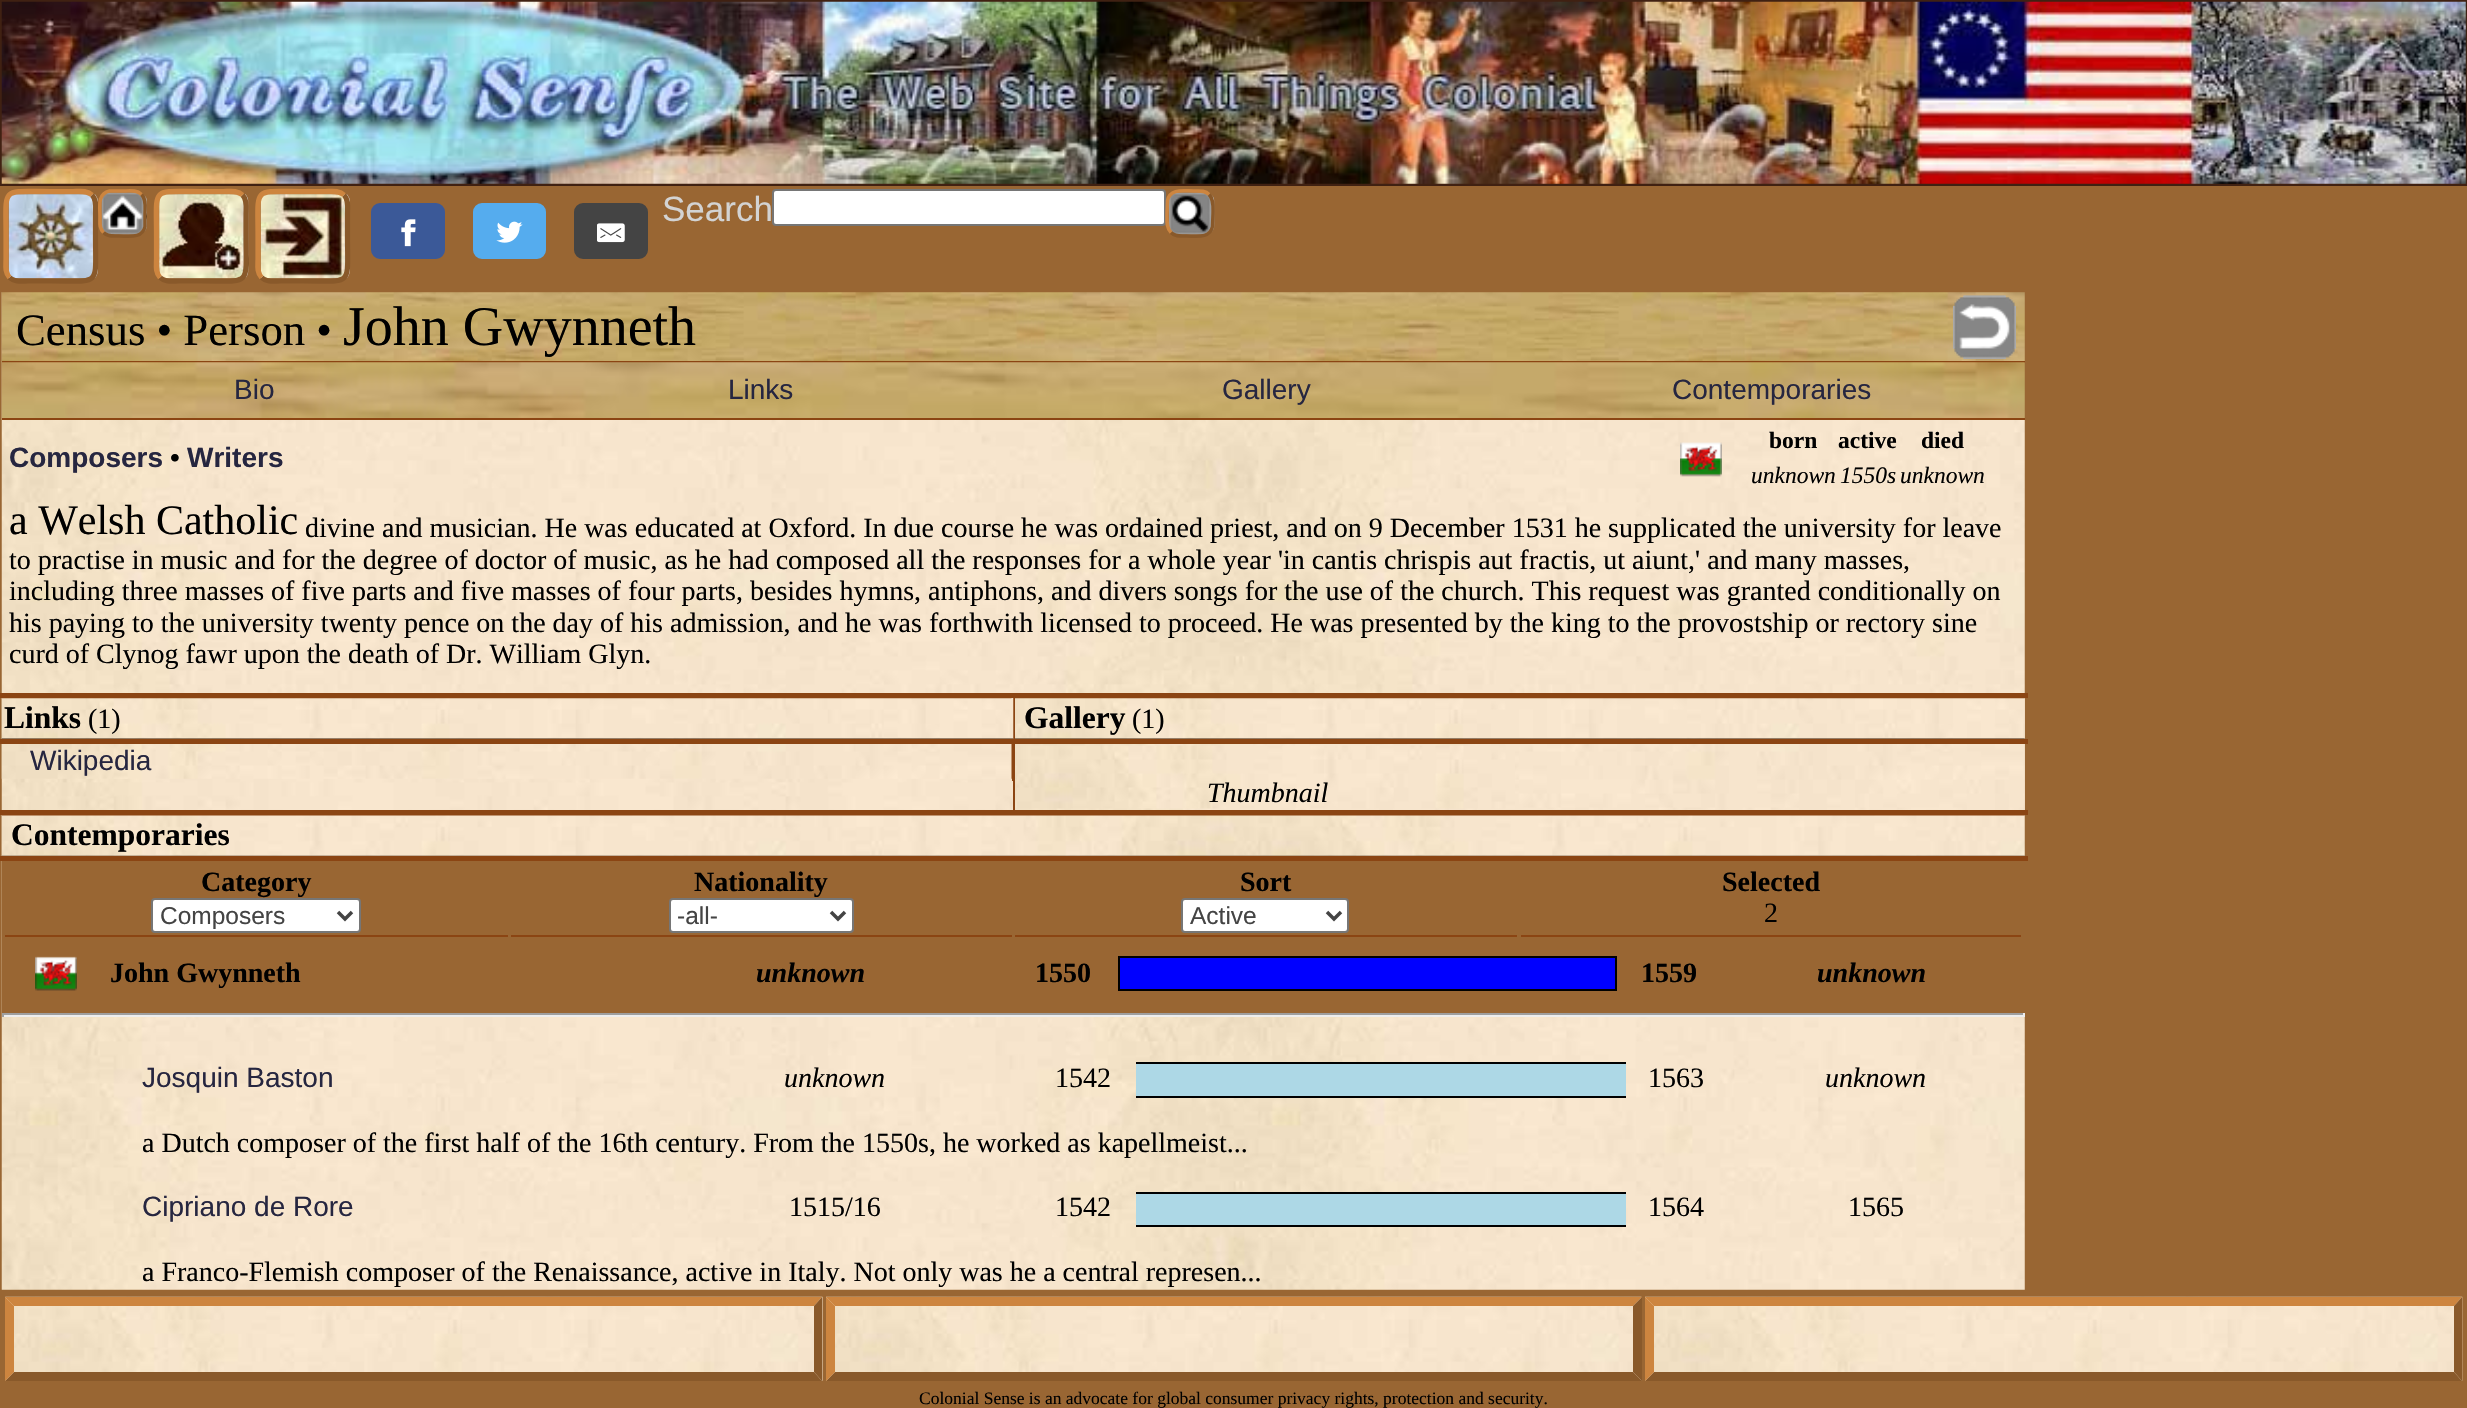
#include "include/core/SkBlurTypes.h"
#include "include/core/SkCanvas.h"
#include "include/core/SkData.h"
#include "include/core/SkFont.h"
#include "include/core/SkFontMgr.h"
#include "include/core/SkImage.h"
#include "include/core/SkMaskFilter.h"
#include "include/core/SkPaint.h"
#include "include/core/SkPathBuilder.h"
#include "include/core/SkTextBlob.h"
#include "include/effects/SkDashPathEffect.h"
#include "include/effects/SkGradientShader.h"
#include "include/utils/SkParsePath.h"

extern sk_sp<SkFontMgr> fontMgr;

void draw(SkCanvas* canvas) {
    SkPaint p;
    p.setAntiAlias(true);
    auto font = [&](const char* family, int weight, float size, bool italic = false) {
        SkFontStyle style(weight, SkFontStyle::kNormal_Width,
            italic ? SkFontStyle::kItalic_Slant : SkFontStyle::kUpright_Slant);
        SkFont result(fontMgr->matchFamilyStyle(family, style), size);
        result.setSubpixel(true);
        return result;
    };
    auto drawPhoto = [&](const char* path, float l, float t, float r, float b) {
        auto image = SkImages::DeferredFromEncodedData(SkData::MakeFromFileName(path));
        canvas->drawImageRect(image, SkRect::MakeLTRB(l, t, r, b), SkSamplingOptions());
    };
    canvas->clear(0xFF996633);
    p.setColor(0xFF402112);
    canvas->drawRect(SkRect::MakeLTRB(0, 0, 2467, 186), p);
    drawPhoto("media/1.png", 1, 1, 2466, 184);
    drawPhoto("media/2.png", 8, 194, 98, 279);
    p.setStyle(SkPaint::kStroke_Style);
    p.setStrokeWidth(5.2f);
    p.setColor(0xFF89592A);
    canvas->drawPath(SkPathBuilder().moveTo(92, 195).cubicTo(97, 200, 95.5f, 208, 95.5f, 214).lineTo(95.5f, 236).cubicTo(95.5f, 287, 101.5f, 281, 51, 281).lineTo(28.5f, 281).cubicTo(22.5f, 281, 14.5f, 282.5f, 9.5f, 277.5f).detach(), p);
    p.setColor(0xFFCD853F);
    canvas->drawPath(SkPathBuilder().moveTo(9.5f, 277.5f).cubicTo(4.5f, 272.5f, 6, 264.5f, 6, 258.5f).lineTo(6, 236).cubicTo(6, 185.5f, 0, 191.5f, 51, 191.5f).lineTo(73, 191.5f).cubicTo(79, 191.5f, 87, 190, 92, 195).detach(), p);
    drawPhoto("media/3.png", 101, 192, 147, 235);
    p.setStrokeWidth(3.5f);
    p.setColor(0xFF89592A);
    canvas->drawPath(SkPathBuilder().moveTo(141.5f, 194.5f).cubicTo(146.5f, 199.5f, 145, 207, 145, 213.5f).lineTo(145, 226.5f).cubicTo(142.5f, 239, 128.5f, 236, 119, 236).cubicTo(113.5f, 236, 107.5f, 237, 103.5f, 232.5f).detach(), p);
    p.setColor(0xFFCD853F);
    canvas->drawPath(SkPathBuilder().moveTo(103.5f, 232.5f).cubicTo(99, 228.5f, 100, 222.5f, 100, 217).cubicTo(100, 207.5f, 97, 193.5f, 109.5f, 191).lineTo(122.5f, 191).cubicTo(129, 191, 136.5f, 189.5f, 141.5f, 194.5f).detach(), p);
    drawPhoto("media/4.png", 159, 194, 249, 279);
    p.setStrokeWidth(5.2f);
    p.setColor(0xFF89592A);
    canvas->drawPath(SkPathBuilder().moveTo(242.5f, 195).cubicTo(247.5f, 200, 246, 208, 246, 214).lineTo(246, 236).cubicTo(246, 287, 252, 281, 201, 281).lineTo(179, 281).cubicTo(173, 281, 165, 282.5f, 160, 277.5f).detach(), p);
    p.setColor(0xFFCD853F);
    canvas->drawPath(SkPathBuilder().moveTo(160, 277.5f).cubicTo(155, 272.5f, 156.5f, 264.5f, 156.5f, 258.5f).lineTo(156.5f, 236).cubicTo(156.5f, 185.5f, 150.5f, 191.5f, 201, 191.5f).lineTo(223.5f, 191.5f).cubicTo(229.5f, 191.5f, 237.5f, 190, 242.5f, 195).detach(), p);
    drawPhoto("media/5.png", 260, 194, 350, 279);
    p.setColor(0xFF89592A);
    canvas->drawPath(SkPathBuilder().moveTo(344, 195).cubicTo(349, 200, 347.5f, 208, 347.5f, 214).lineTo(347.5f, 236).cubicTo(347.5f, 287, 353.5f, 281, 303, 281).lineTo(280.5f, 281).cubicTo(274.5f, 281, 266.5f, 282.5f, 261.5f, 277.5f).detach(), p);
    p.setColor(0xFFCD853F);
    canvas->drawPath(SkPathBuilder().moveTo(261.5f, 277.5f).cubicTo(256.5f, 272.5f, 258, 264.5f, 258, 258.5f).lineTo(258, 236).cubicTo(258, 185.5f, 252, 191.5f, 303, 191.5f).lineTo(325, 191.5f).cubicTo(331, 191.5f, 339, 190, 344, 195).detach(), p);
    p.setStyle(SkPaint::kFill_Style);
    p.setColor(0xFF3B5998);
    canvas->drawRoundRect(SkRect::MakeLTRB(372, 204, 444, 258), 8, 8, p);
    p.setStyle(SkPaint::kStroke_Style);
    p.setStrokeWidth(2);
    canvas->drawRoundRect(SkRect::MakeLTRB(372, 204, 444, 258), 8, 8, p);
    drawPhoto("media/6.png", 401, 219, 416, 247);
    p.setStyle(SkPaint::kFill_Style);
    p.setColor(0xFF55ACEE);
    canvas->drawRoundRect(SkRect::MakeLTRB(474, 204, 545, 258), 8, 8, p);
    p.setStyle(SkPaint::kStroke_Style);
    canvas->drawRoundRect(SkRect::MakeLTRB(474, 204, 545, 258), 8, 8, p);
    drawPhoto("media/7.png", 496, 221, 523, 243);
    p.setStyle(SkPaint::kFill_Style);
    p.setColor(0xFF444444);
    canvas->drawRoundRect(SkRect::MakeLTRB(575, 204, 647, 258), 8, 8, p);
    p.setStyle(SkPaint::kStroke_Style);
    canvas->drawRoundRect(SkRect::MakeLTRB(575, 204, 647, 258), 8, 8, p);
    drawPhoto("media/8.png", 597, 223, 625, 243);
    auto font1 = font("Liberation Sans", 400, 35);
    p.setStyle(SkPaint::kFill_Style);
    p.setColor(0xFFD3D3D3);
    canvas->drawString("Search", 662, 221, font1, p);
    p.setColor(0xFFFFFFFF);
    canvas->drawRoundRect(SkRect::MakeLTRB(773, 190, 1165, 225), 3, 3, p);
    p.setStyle(SkPaint::kStroke_Style);
    p.setColor(0xFF767676);
    canvas->drawRoundRect(SkRect::MakeLTRB(773, 190, 1165, 225), 3, 3, p);
    drawPhoto("media/9.png", 1169, 192, 1215, 235);
    p.setStrokeWidth(3.5f);
    p.setColor(0xFF89592A);
    canvas->drawPath(SkPathBuilder().moveTo(1209, 194.5f).cubicTo(1214, 199.5f, 1213, 207, 1213, 213.5f).lineTo(1212.5f, 226.5f).cubicTo(1210, 239, 1196, 236, 1186.5f, 236).cubicTo(1181, 236, 1175, 237, 1171, 232.5f).detach(), p);
    p.setColor(0xFFCD853F);
    canvas->drawPath(SkPathBuilder().moveTo(1171, 232.5f).cubicTo(1166, 227.5f, 1167, 220, 1167, 213.5f).lineTo(1167.5f, 200.5f).cubicTo(1170, 188, 1184, 191, 1193.5f, 191).cubicTo(1199, 191, 1205, 190, 1209, 194.5f).detach(), p);
    drawPhoto("media/10.png", 1, 292, 2025, 1290);
    p.setStyle(SkPaint::kFill_Style);
    p.setColor(0xFF996633);
    canvas->drawRect(SkRect::MakeLTRB(2, 292, 2025, 418), p);
    drawPhoto("media/11.png", 1, 292, 2025, 363);
    p.setColor(0xFF8B4513);
    canvas->drawRect(SkRect::MakeLTRB(2, 361, 2025, 363), p);
    auto font2 = font("Liberation Serif", 400, 44.75f);
    p.setColor(0xFF000000);
    canvas->drawString("Census • Person •", 16, 345, font2, p);
    auto font3 = font("Liberation Serif", 400, 56);
    canvas->drawString("John Gwynneth", 343, 345, font3, p);
    drawPhoto("media/12.png", 1953, 295, 2016, 359);
    drawPhoto("media/13.png", 1953, 295, 2016, 359);
    drawPhoto("media/14.png", 1953, 295, 2016, 359);
    drawPhoto("media/15.png", 1, 362, 2025, 420);
    p.setColor(0xFF8B4513);
    canvas->drawRect(SkRect::MakeLTRB(2, 418, 2025, 420), p);
    auto font4 = font("Liberation Sans", 400, 28);
    p.setColor(0xFF262640);
    {
        const struct { const char* s; float x, y; } items[] = {
            {"Bio", 234, 399},
            {"Links", 728, 399},
            {"Gallery", 1222, 399},
            {"Contemporaries", 1672, 399},
        };
        for (auto [s, x, y] : items) {
            canvas->drawString(s, x, y, font4, p);
        }
    }
    auto font5 = font("Liberation Sans", 700, 28);
    canvas->drawString("Composers", 9, 467, font5, p);
    auto font6 = font("Liberation Serif", 700, 28);
    p.setColor(0xFF000000);
    canvas->drawString("•", 170, 467, font6, p);
    p.setColor(0xFF262640);
    canvas->drawString("Writers", 187, 467, font5, p);
    drawPhoto("media/16.png", 1680, 442, 1722, 477);
    auto font7 = font("Liberation Serif", 700, 23.5f);
    p.setColor(0xFF000000);
    {
        const struct { const char* s; float x, y; } items[] = {
            {"born", 1769, 448},
            {"active", 1838, 448},
            {"died", 1921, 448},
        };
        for (auto [s, x, y] : items) {
            canvas->drawString(s, x, y, font7, p);
        }
    }
    auto font8 = font("Liberation Serif", 400, 23.5f, true);
    {
        const struct { const char* s; float x, y; } items[] = {
            {"unknown", 1751, 483},
            {"1550s", 1840, 483},
            {"unknown", 1900, 483},
        };
        for (auto [s, x, y] : items) {
            canvas->drawString(s, x, y, font8, p);
        }
    }
    auto font9 = font("Liberation Serif", 400, 42);
    canvas->drawString("a Welsh Catholic", 9, 534, font9, p);
    auto font10 = font("Liberation Serif", 400, 28);
    {
        const struct { const char* s; float x, y; } items[] = {
            {"divine and musician. He was educated at Oxford. In due course he was ordained priest, and on 9 December 1531 he supplicated the university for leave", 305, 537},
            {"to practise in music and for the degree of doctor of music, as he had composed all the responses for a whole year 'in cantis chrispis aut fractis, ut aiunt,' and many masses,", 9, 569},
            {"including three masses of five parts and five masses of four parts, besides hymns, antiphons, and divers songs for the use of the church. This request was granted conditionally on", 9, 600},
            {"his paying to the university twenty pence on the day of his admission, and he was forthwith licensed to proceed. He was presented by the king to the provostship or rectory sine", 9, 632},
            {"curd of Clynog fawr upon the death of Dr. William Glyn.", 9, 663},
        };
        for (auto [s, x, y] : items) {
            canvas->drawString(s, x, y, font10, p);
        }
    }
    p.setColor(0xFF8B4513);
    canvas->drawRect(SkRect::MakeLTRB(1013, 693, 1015, 812), p);
    drawPhoto("media/17.png", 1, 698, 1014, 779);
    {
        const struct { float l, t, r, b; SkColor color; } items[] = {
            {0, 693, 2028, 698, 0xFF8B4513},
            {1012, 740, 1014, 781, 0xFF8B4513},
            {0, 739, 1015, 744, 0xFF8B4513},
        };
        for (auto [l, t, r, b, color] : items) {
            p.setColor(color);
            canvas->drawRect(SkRect::MakeLTRB(l, t, r, b), p);
        }
    }
    auto font11 = font("Liberation Serif", 700, 31.5f);
    p.setColor(0xFF000000);
    canvas->drawString("Links", 4, 728, font11, p);
    canvas->drawString("(1)", 88, 728, font10, p);
    p.setColor(0xFF262640);
    canvas->drawString("Wikipedia", 30, 770, font4, p);
    drawPhoto("media/18.png", 1015, 698, 2025, 810);
    p.setColor(0xFF8B4513);
    canvas->drawRect(SkRect::MakeLTRB(1012, 739, 2028, 744), p);
    p.setColor(0xFF000000);
    canvas->drawString("Gallery", 1024, 728, font11, p);
    canvas->drawString("(1)", 1132, 728, font10, p);
    drawPhoto("media/19.png", 1017, 745, 1515, 809);
    auto font12 = font("Liberation Serif", 400, 28, true);
    canvas->drawString("Thumbnail", 1207, 802, font12, p);
    p.setColor(0xFF996633);
    canvas->drawRect(SkRect::MakeLTRB(2, 815, 2025, 1013), p);
    drawPhoto("media/20.png", 1, 815, 2025, 856);
    p.setColor(0xFF8B4513);
    canvas->drawRect(SkRect::MakeLTRB(0, 810, 2028, 815), p);
    canvas->drawRect(SkRect::MakeLTRB(0, 856, 2028, 861), p);
    p.setColor(0xFF000000);
    canvas->drawString("Contemporaries", 11, 845, font11, p);
    p.setColor(0xFF8B4513);
    canvas->drawRect(SkRect::MakeLTRB(5, 935, 508, 937), p);
    p.setColor(0xFF000000);
    canvas->drawString("Category", 201, 891, font6, p);
    p.setColor(0xFFFFFFFF);
    canvas->drawRoundRect(SkRect::MakeLTRB(152, 899, 360, 932), 3, 3, p);
    p.setStyle(SkPaint::kStroke_Style);
    p.setStrokeWidth(2);
    p.setColor(0xFF767676);
    canvas->drawRoundRect(SkRect::MakeLTRB(152, 899, 360, 932), 3, 3, p);
    p.setStrokeWidth(3.5f);
    p.setColor(0xFF444444);
    canvas->drawPath(SkPathBuilder().moveTo(338, 912).lineTo(345, 919).lineTo(352, 912).detach(), p);
    auto font13 = font("Liberation Sans", 400, 24.5f);
    p.setStyle(SkPaint::kFill_Style);
    canvas->drawString("Composers", 160, 924, font13, p);
    p.setColor(0xFF8B4513);
    canvas->drawRect(SkRect::MakeLTRB(511, 935, 1012, 937), p);
    p.setColor(0xFF000000);
    canvas->drawString("Nationality", 694, 891, font6, p);
    p.setColor(0xFFFFFFFF);
    canvas->drawRoundRect(SkRect::MakeLTRB(670, 899, 853, 932), 3, 3, p);
    p.setStyle(SkPaint::kStroke_Style);
    p.setStrokeWidth(2);
    p.setColor(0xFF767676);
    canvas->drawRoundRect(SkRect::MakeLTRB(670, 899, 853, 932), 3, 3, p);
    p.setStrokeWidth(3.5f);
    p.setColor(0xFF444444);
    canvas->drawPath(SkPathBuilder().moveTo(831, 912).lineTo(838, 919).lineTo(845, 912).detach(), p);
    p.setStyle(SkPaint::kFill_Style);
    canvas->drawString("-all-", 677, 924, font13, p);
    p.setColor(0xFF8B4513);
    canvas->drawRect(SkRect::MakeLTRB(1015, 935, 1517, 937), p);
    p.setColor(0xFF000000);
    canvas->drawString("Sort", 1240, 891, font6, p);
    p.setColor(0xFFFFFFFF);
    canvas->drawRoundRect(SkRect::MakeLTRB(1182, 899, 1348, 932), 3, 3, p);
    p.setStyle(SkPaint::kStroke_Style);
    p.setStrokeWidth(2);
    p.setColor(0xFF767676);
    canvas->drawRoundRect(SkRect::MakeLTRB(1182, 899, 1348, 932), 3, 3, p);
    p.setStrokeWidth(3.5f);
    p.setColor(0xFF444444);
    canvas->drawPath(SkPathBuilder().moveTo(1327, 912).lineTo(1334, 919).lineTo(1341, 912).detach(), p);
    p.setStyle(SkPaint::kFill_Style);
    canvas->drawString("Active", 1190, 924, font13, p);
    p.setColor(0xFF8B4513);
    canvas->drawRect(SkRect::MakeLTRB(1521, 935, 2021, 937), p);
    p.setColor(0xFF000000);
    canvas->drawString("Selected", 1722, 891, font6, p);
    canvas->drawString("2", 1764, 922, font10, p);
    drawPhoto("media/21.png", 35, 956, 77, 991);
    canvas->drawString("John Gwynneth", 110, 982, font6, p);
    auto font14 = font("Liberation Serif", 700, 28, true);
    canvas->drawString("unknown", 756, 982, font14, p);
    canvas->drawString("1550", 1035, 982, font6, p);
    p.setColor(0xFF0000FF);
    canvas->drawRect(SkRect::MakeLTRB(1119, 957, 1616, 990), p);
    p.setStyle(SkPaint::kStroke_Style);
    p.setStrokeWidth(2);
    p.setColor(0xFF000000);
    canvas->drawRect(SkRect::MakeLTRB(1119, 957, 1616, 990), p);
    p.setStyle(SkPaint::kFill_Style);
    canvas->drawString("1559", 1641, 982, font6, p);
    canvas->drawString("unknown", 1817, 982, font14, p);
    {
        const struct { float l, t, r, b; SkColor color; } items[] = {
            {2, 1013, 2025, 1015, 0xFF9F9F9F},
            {2023, 1013, 2025, 1017, 0xFFEEEEEE},
            {2, 1015, 2025, 1017, 0xFFEEEEEE},
            {2, 1013, 4, 1017, 0xFF9F9F9F},
        };
        for (auto [l, t, r, b, color] : items) {
            p.setColor(color);
            canvas->drawRect(SkRect::MakeLTRB(l, t, r, b), p);
        }
    }
    p.setColor(0xFF262640);
    canvas->drawString("Josquin Baston", 142, 1087, font4, p);
    p.setColor(0xFF000000);
    canvas->drawString("unknown", 784, 1087, font12, p);
    canvas->drawString("1542", 1055, 1087, font10, p);
    {
        const struct { float l, t, r, b; SkColor color; } items[] = {
            {1136, 1064, 1626, 1096, 0xFFADD8E6},
            {1136, 1062, 1626, 1064, 0xFF000000},
            {1136, 1096, 1626, 1098, 0xFF000000},
        };
        for (auto [l, t, r, b, color] : items) {
            p.setColor(color);
            canvas->drawRect(SkRect::MakeLTRB(l, t, r, b), p);
        }
    }
    canvas->drawString("1563", 1648, 1087, font10, p);
    canvas->drawString("unknown", 1825, 1087, font12, p);
    canvas->drawString("a Dutch composer of the first half of the 16th century. From the 1550s, he worked as kapellmeist...", 142, 1152, font10, p);
    p.setColor(0xFF262640);
    canvas->drawString("Cipriano de Rore", 142, 1216, font4, p);
    p.setColor(0xFF000000);
    canvas->drawString("1515/16", 789, 1216, font10, p);
    canvas->drawString("1542", 1055, 1216, font10, p);
    {
        const struct { float l, t, r, b; SkColor color; } items[] = {
            {1136, 1194, 1626, 1225, 0xFFADD8E6},
            {1136, 1192, 1626, 1194, 0xFF000000},
            {1136, 1225, 1626, 1227, 0xFF000000},
        };
        for (auto [l, t, r, b, color] : items) {
            p.setColor(color);
            canvas->drawRect(SkRect::MakeLTRB(l, t, r, b), p);
        }
    }
    {
        const struct { const char* s; float x, y; } items[] = {
            {"1564", 1648, 1216},
            {"1565", 1848, 1216},
            {"a Franco-Flemish composer of the Renaissance, active in Italy. Not only was he a central represen...", 142, 1281},
        };
        for (auto [s, x, y] : items) {
            canvas->drawString(s, x, y, font10, p);
        }
    }
    drawPhoto("media/22.png", 5, 1296, 823, 1381);
    p.setColor(0xFFCD853F);
    canvas->drawPath(SkPathBuilder().moveTo(5, 1297).lineTo(822, 1297).lineTo(814, 1306).lineTo(14, 1306).close().detach(), p);
    p.setColor(0xFF89592A);
    canvas->drawPath(SkPathBuilder().moveTo(822, 1297).lineTo(822, 1381).lineTo(814, 1372).lineTo(814, 1306).close().detach(), p);
    canvas->drawPath(SkPathBuilder().moveTo(822, 1381).lineTo(5, 1381).lineTo(14, 1372).lineTo(814, 1372).close().detach(), p);
    p.setColor(0xFFCD853F);
    canvas->drawPath(SkPathBuilder().moveTo(5, 1381).lineTo(5, 1297).lineTo(14, 1306).lineTo(14, 1372).close().detach(), p);
    drawPhoto("media/23.png", 826, 1296, 1642, 1381);
    canvas->drawPath(SkPathBuilder().moveTo(826, 1297).lineTo(1642, 1297).lineTo(1633, 1306).lineTo(835, 1306).close().detach(), p);
    p.setColor(0xFF89592A);
    canvas->drawPath(SkPathBuilder().moveTo(1642, 1297).lineTo(1642, 1381).lineTo(1633, 1372).lineTo(1633, 1306).close().detach(), p);
    canvas->drawPath(SkPathBuilder().moveTo(1642, 1381).lineTo(826, 1381).lineTo(835, 1372).lineTo(1633, 1372).close().detach(), p);
    p.setColor(0xFFCD853F);
    canvas->drawPath(SkPathBuilder().moveTo(826, 1381).lineTo(826, 1297).lineTo(835, 1306).lineTo(835, 1372).close().detach(), p);
    drawPhoto("media/24.png", 1645, 1296, 2463, 1381);
    canvas->drawPath(SkPathBuilder().moveTo(1645, 1297).lineTo(2462, 1297).lineTo(2454, 1306).lineTo(1654, 1306).close().detach(), p);
    p.setColor(0xFF89592A);
    canvas->drawPath(SkPathBuilder().moveTo(2462, 1297).lineTo(2462, 1381).lineTo(2454, 1372).lineTo(2454, 1306).close().detach(), p);
    canvas->drawPath(SkPathBuilder().moveTo(2462, 1381).lineTo(1645, 1381).lineTo(1654, 1372).lineTo(2454, 1372).close().detach(), p);
    p.setColor(0xFFCD853F);
    canvas->drawPath(SkPathBuilder().moveTo(1645, 1381).lineTo(1645, 1297).lineTo(1654, 1306).lineTo(1654, 1372).close().detach(), p);
    auto font15 = font("Liberation Serif", 400, 17.5f);
    p.setColor(0xFF000000);
    canvas->drawString("Colonial Sense is an advocate for global consumer privacy rights, protection and security.", 919, 1404, font15, p);
}
